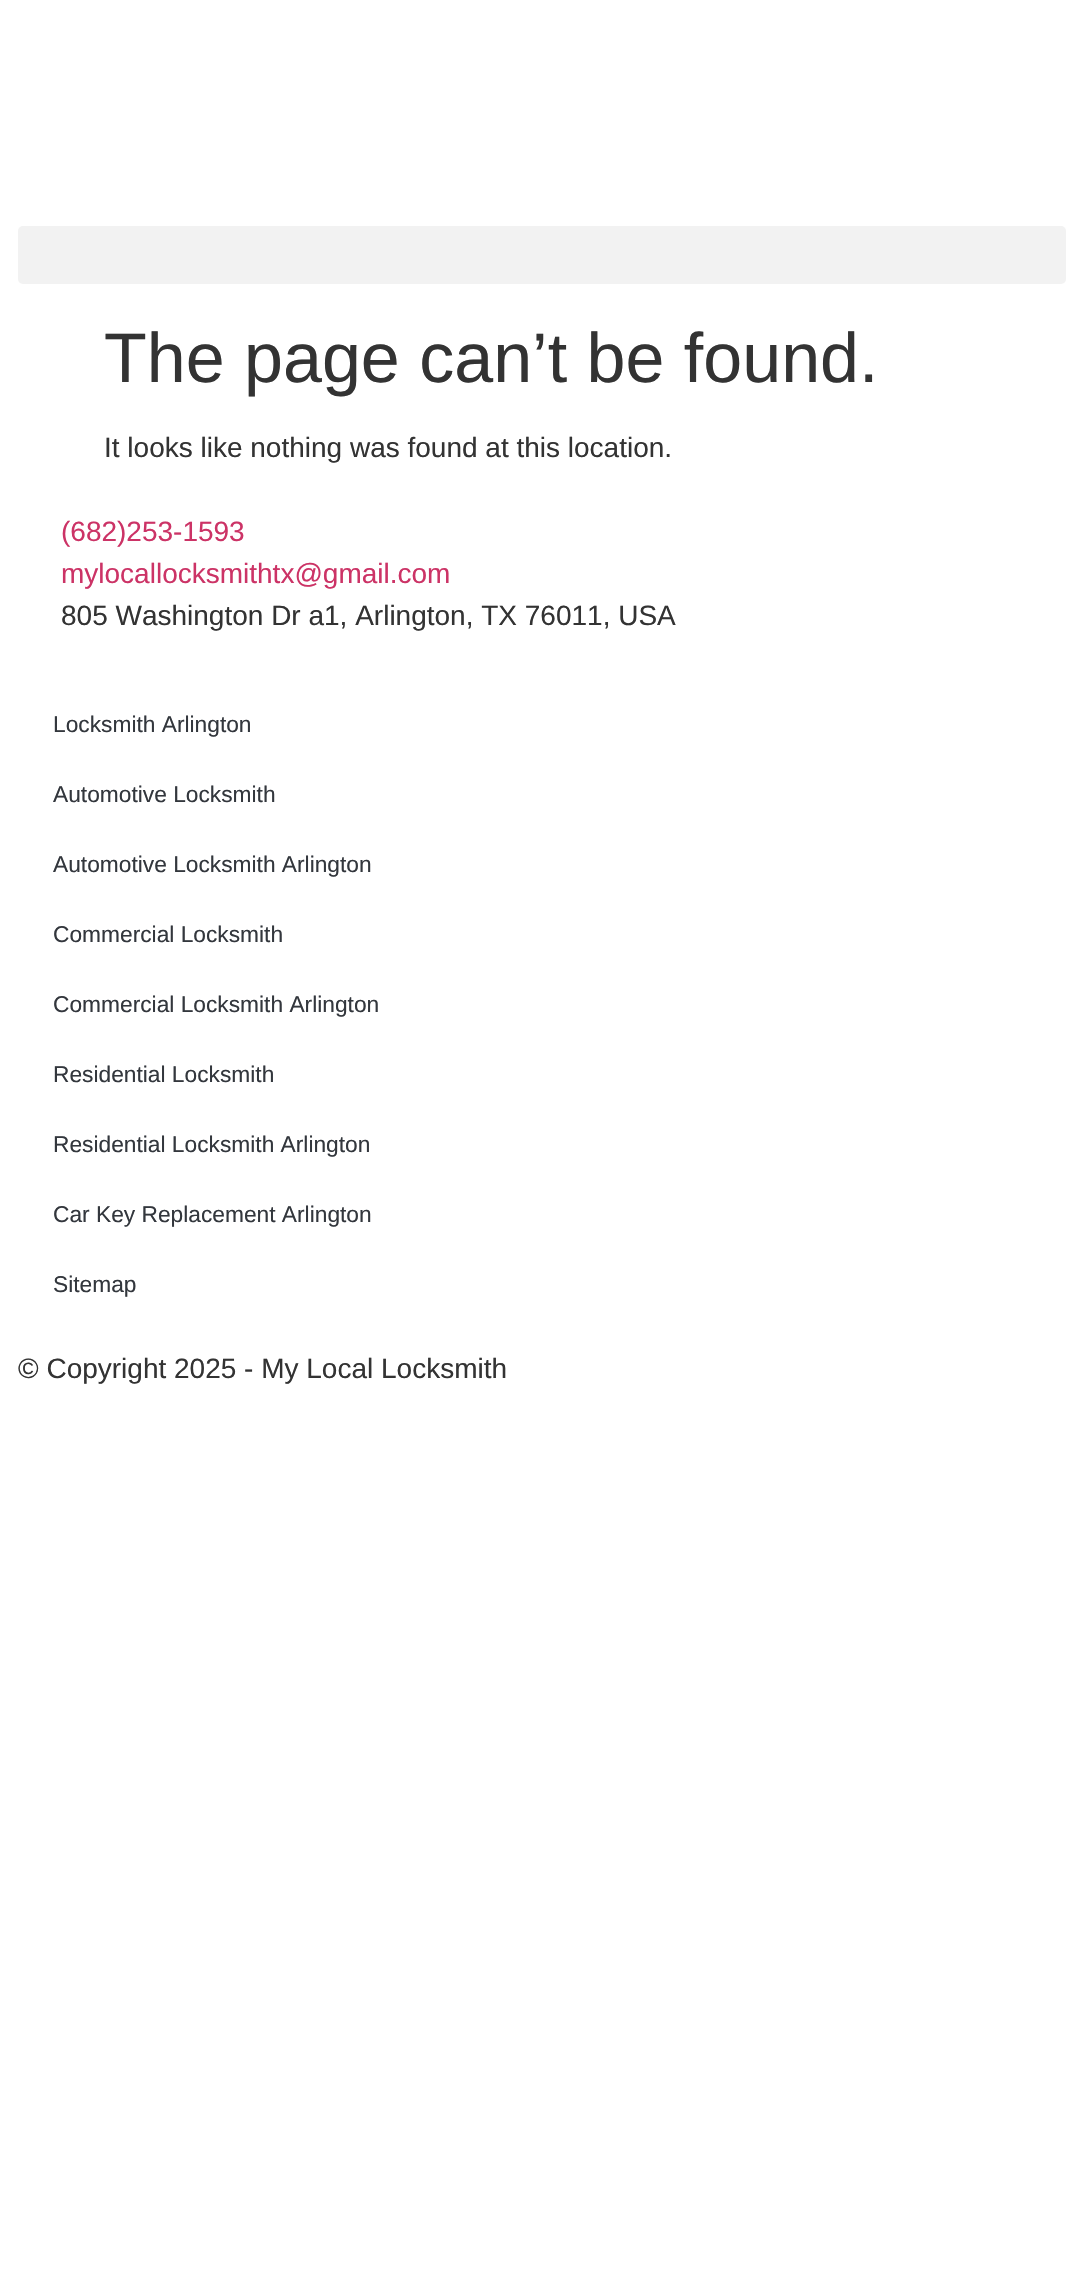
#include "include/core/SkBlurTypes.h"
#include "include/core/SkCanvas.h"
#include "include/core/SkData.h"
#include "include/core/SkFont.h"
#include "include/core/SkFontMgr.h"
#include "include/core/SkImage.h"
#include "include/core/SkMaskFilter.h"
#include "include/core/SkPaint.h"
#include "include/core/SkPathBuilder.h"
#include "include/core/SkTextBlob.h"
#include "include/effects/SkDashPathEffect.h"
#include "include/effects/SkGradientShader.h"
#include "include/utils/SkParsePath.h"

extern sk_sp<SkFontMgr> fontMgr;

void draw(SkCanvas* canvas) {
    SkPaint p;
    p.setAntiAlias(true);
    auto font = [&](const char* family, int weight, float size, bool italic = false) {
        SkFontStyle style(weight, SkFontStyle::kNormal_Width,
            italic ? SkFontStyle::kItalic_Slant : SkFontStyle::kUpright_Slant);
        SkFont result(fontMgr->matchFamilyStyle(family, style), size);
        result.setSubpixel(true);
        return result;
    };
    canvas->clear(0xFFFFFFFF);
    p.setColor(0xFFF2F2F2);
    canvas->drawRoundRect(SkRect::MakeLTRB(18, 226, 1066, 284), 5, 5, p);
    auto font1 = font("Liberation Sans", 400, 70);
    p.setColor(0xFF333333);
    canvas->drawString("The page can’t be found.", 104, 382, font1, p);
    auto font2 = font("Liberation Sans", 400, 28);
    canvas->drawString("It looks like nothing was found at this location.", 104, 457, font2, p);
    p.setColor(0xFFCC3366);
    canvas->drawString("(682)253-1593", 61, 541, font2, p);
    canvas->drawString("mylocallocksmithtx@gmail.com", 61, 583, font2, p);
    p.setColor(0xFF333333);
    canvas->drawString("805 Washington Dr a1, Arlington, TX 76011, USA", 61, 625, font2, p);
    auto font3 = font("Liberation Sans", 400, 22.75f);
    p.setColor(0xFF33373D);
    {
        const struct { const char* s; float x, y; } items[] = {
            {"Locksmith Arlington", 53, 732},
            {"Automotive Locksmith", 53, 802},
            {"Automotive Locksmith Arlington", 53, 872},
            {"Commercial Locksmith", 53, 942},
            {"Commercial Locksmith Arlington", 53, 1012},
            {"Residential Locksmith", 53, 1082},
            {"Residential Locksmith Arlington", 53, 1152},
            {"Car Key Replacement Arlington", 53, 1222},
            {"Sitemap", 53, 1292},
        };
        for (auto [s, x, y] : items) {
            canvas->drawString(s, x, y, font3, p);
        }
    }
    p.setColor(0xFF333333);
    canvas->drawString("© Copyright 2025 - My Local Locksmith", 18, 1378, font2, p);
}
